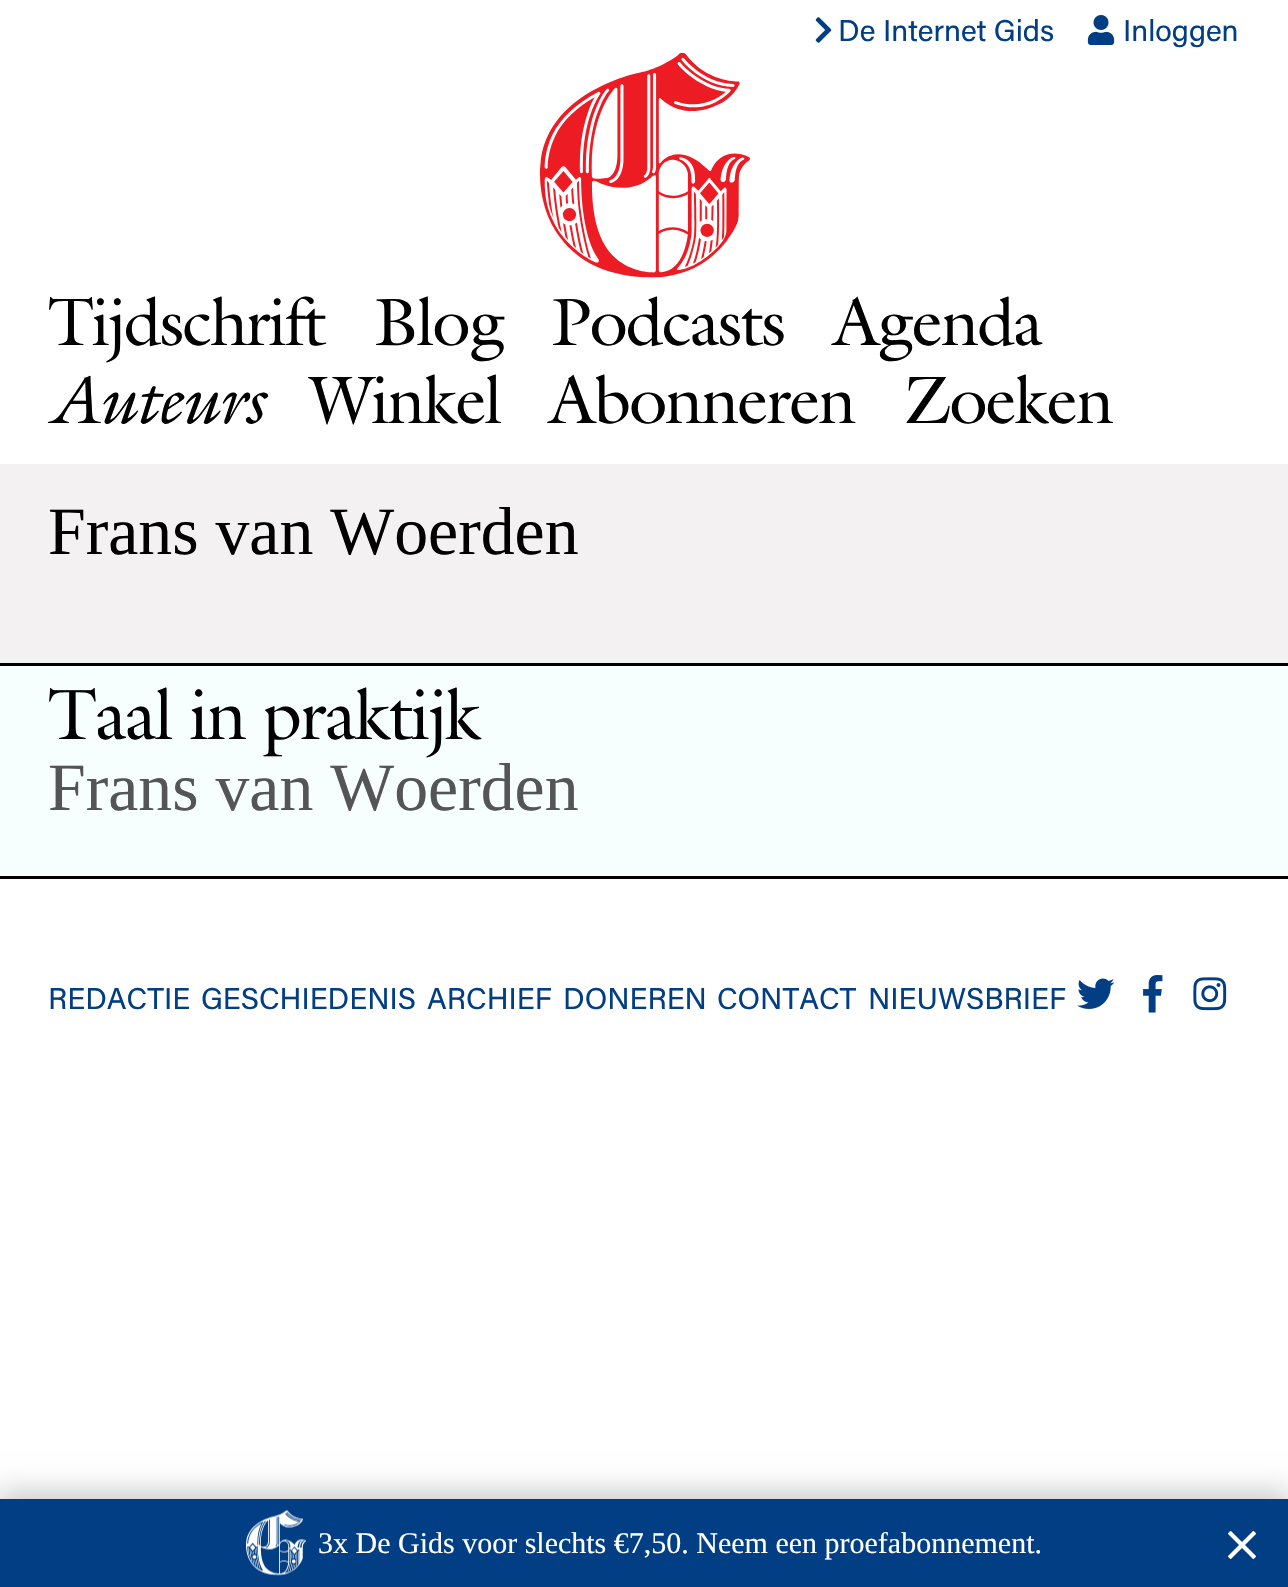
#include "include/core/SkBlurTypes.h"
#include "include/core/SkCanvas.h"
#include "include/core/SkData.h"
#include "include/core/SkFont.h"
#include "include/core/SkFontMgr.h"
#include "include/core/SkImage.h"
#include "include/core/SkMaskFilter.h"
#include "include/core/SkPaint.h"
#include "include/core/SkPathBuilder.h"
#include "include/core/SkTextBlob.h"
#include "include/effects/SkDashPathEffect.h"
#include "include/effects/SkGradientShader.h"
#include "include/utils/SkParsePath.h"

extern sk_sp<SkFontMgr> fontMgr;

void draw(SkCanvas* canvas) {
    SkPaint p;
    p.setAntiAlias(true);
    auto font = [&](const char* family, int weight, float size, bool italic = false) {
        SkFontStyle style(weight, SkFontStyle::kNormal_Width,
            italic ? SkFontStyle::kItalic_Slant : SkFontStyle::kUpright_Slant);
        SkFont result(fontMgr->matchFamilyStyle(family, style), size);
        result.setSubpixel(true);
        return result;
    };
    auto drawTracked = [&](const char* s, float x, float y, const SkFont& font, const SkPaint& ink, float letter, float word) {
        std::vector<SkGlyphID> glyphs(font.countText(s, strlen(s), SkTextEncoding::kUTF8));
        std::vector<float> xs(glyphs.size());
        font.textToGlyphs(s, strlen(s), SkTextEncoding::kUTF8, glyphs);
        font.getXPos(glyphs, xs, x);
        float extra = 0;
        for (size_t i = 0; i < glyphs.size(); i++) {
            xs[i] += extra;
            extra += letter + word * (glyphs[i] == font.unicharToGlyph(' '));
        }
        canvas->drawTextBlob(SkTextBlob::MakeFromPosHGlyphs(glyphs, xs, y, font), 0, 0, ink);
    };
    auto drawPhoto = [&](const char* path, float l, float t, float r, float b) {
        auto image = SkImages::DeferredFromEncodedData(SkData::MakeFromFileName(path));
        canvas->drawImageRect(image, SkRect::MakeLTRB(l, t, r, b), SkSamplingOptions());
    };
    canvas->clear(0xFFFFFFFF);
    drawPhoto("media/1.png", 815, 17, 832, 43);
    auto font1 = font("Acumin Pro", 400, 30);
    p.setColor(0xFF023E84);
    canvas->drawString("De Internet Gids", 838, 41, font1, p);
    drawPhoto("media/2.png", 1087, 15, 1115, 45);
    canvas->drawString("Inloggen", 1123, 41, font1, p);
    drawPhoto("media/3.png", 540, 53, 750, 278);
    auto font2 = font("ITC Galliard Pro", 400, 67.5f);
    p.setColor(0xFF000000);
    {
        const struct { const char* s; float x, y; } items[] = {
            {"Tijdschrift", 48, 345},
            {"Blog", 374, 345},
            {"Podcasts", 551, 345},
            {"Agenda", 833, 345},
        };
        for (auto [s, x, y] : items) {
            drawTracked(s, x, y, font2, p, -1.75f, 0);
        }
    }
    auto font3 = font("ITC Galliard Pro", 400, 67.5f, true);
    drawTracked("Auteurs", 48, 423, font3, p, -1.75f, 0);
    {
        const struct { const char* s; float x, y; } items[] = {
            {"Winkel", 310, 423},
            {"Abonneren", 549, 423},
            {"Zoeken", 904, 423},
        };
        for (auto [s, x, y] : items) {
            drawTracked(s, x, y, font2, p, -1.75f, 0);
        }
    }
    p.setColor(0xFFF3F1F1);
    canvas->drawRect(SkRect::MakeLTRB(0, 464, 1288, 663), p);
    p.setColor(0xFF000000);
    canvas->drawRect(SkRect::MakeLTRB(0, 663, 1288, 666), p);
    auto font4 = font("Liberation Serif", 400, 67.75f);
    canvas->drawString("Frans van Woerden", 48, 554, font4, p);
    p.setColor(0xFFF6FFFE);
    canvas->drawRect(SkRect::MakeLTRB(0, 666, 1288, 876), p);
    p.setColor(0xFF000000);
    canvas->drawRect(SkRect::MakeLTRB(0, 876, 1288, 879), p);
    auto font5 = font("ITC Galliard Pro", 400, 71.75f);
    drawTracked("Taal in praktijk", 48, 739, font5, p, -1.75f, 0);
    p.setColor(0xFF555555);
    canvas->drawString("Frans van Woerden", 48, 810, font4, p);
    p.setColor(0xFF023E84);
    {
        const struct { const char* s; float x, y; } items[] = {
            {"REDACTIE", 48, 1009},
            {"GESCHIEDENIS", 201, 1009},
            {"ARCHIEF", 427, 1009},
            {"DONEREN", 563, 1009},
            {"CONTACT", 717, 1009},
            {"NIEUWSBRIEF", 868, 1009},
        };
        for (auto [s, x, y] : items) {
            canvas->drawString(s, x, y, font1, p);
        }
    }
    drawPhoto("media/4.png", 1077, 978, 1115, 1009);
    drawPhoto("media/5.png", 1143, 975, 1163, 1013);
    drawPhoto("media/6.png", 1193, 977, 1227, 1011);
    p.setColor(0x33000000);
    p.setMaskFilter(SkMaskFilter::MakeBlur(kNormal_SkBlurStyle, 13.5f));
    canvas->drawRect(SkRect::MakeLTRB(-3, 1491, 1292, 1586), p);
    p.setMaskFilter(nullptr);
    p.setColor(0xFF023E84);
    canvas->drawRect(SkRect::MakeLTRB(0, 1499, 1288, 1587), p);
    drawPhoto("media/7.png", 246, 1510, 306, 1576);
    auto font6 = font("Liberation Serif", 400, 30);
    p.setColor(0xFFFFFFFF);
    canvas->drawString("3x De Gids voor slechts €7,50. Neem een proefabonnement.", 318, 1553, font6, p);
    drawPhoto("media/8.png", 1228, 1531, 1256, 1559);
}
